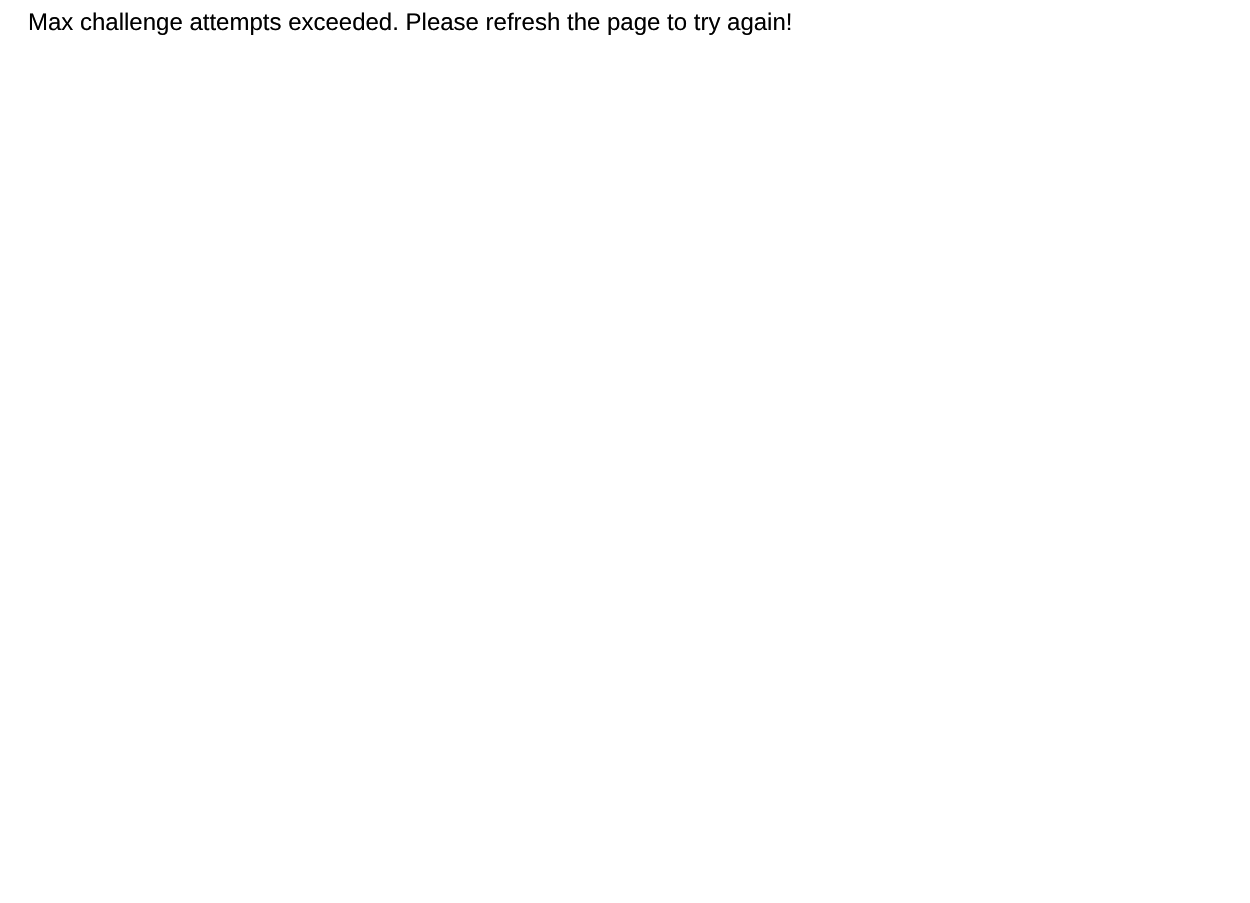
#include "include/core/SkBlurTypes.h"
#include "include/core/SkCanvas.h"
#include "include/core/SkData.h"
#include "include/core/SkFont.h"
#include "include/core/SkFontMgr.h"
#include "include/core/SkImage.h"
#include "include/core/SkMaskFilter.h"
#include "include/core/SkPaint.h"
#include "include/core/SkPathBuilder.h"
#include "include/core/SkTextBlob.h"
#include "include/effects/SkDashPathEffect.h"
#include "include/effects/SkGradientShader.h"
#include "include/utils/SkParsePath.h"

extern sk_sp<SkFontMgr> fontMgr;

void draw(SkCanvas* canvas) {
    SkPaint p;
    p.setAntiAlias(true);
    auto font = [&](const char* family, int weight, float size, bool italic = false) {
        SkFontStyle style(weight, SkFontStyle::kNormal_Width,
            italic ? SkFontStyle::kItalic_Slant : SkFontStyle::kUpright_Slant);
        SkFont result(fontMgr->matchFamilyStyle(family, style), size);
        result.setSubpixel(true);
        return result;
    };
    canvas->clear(0xFFFFFFFF);
    auto font1 = font("Liberation Sans", 400, 24);
    p.setColor(0xFF000000);
    canvas->drawString("Max challenge attempts exceeded. Please refresh the page to try again!", 28, 30, font1, p);
}
